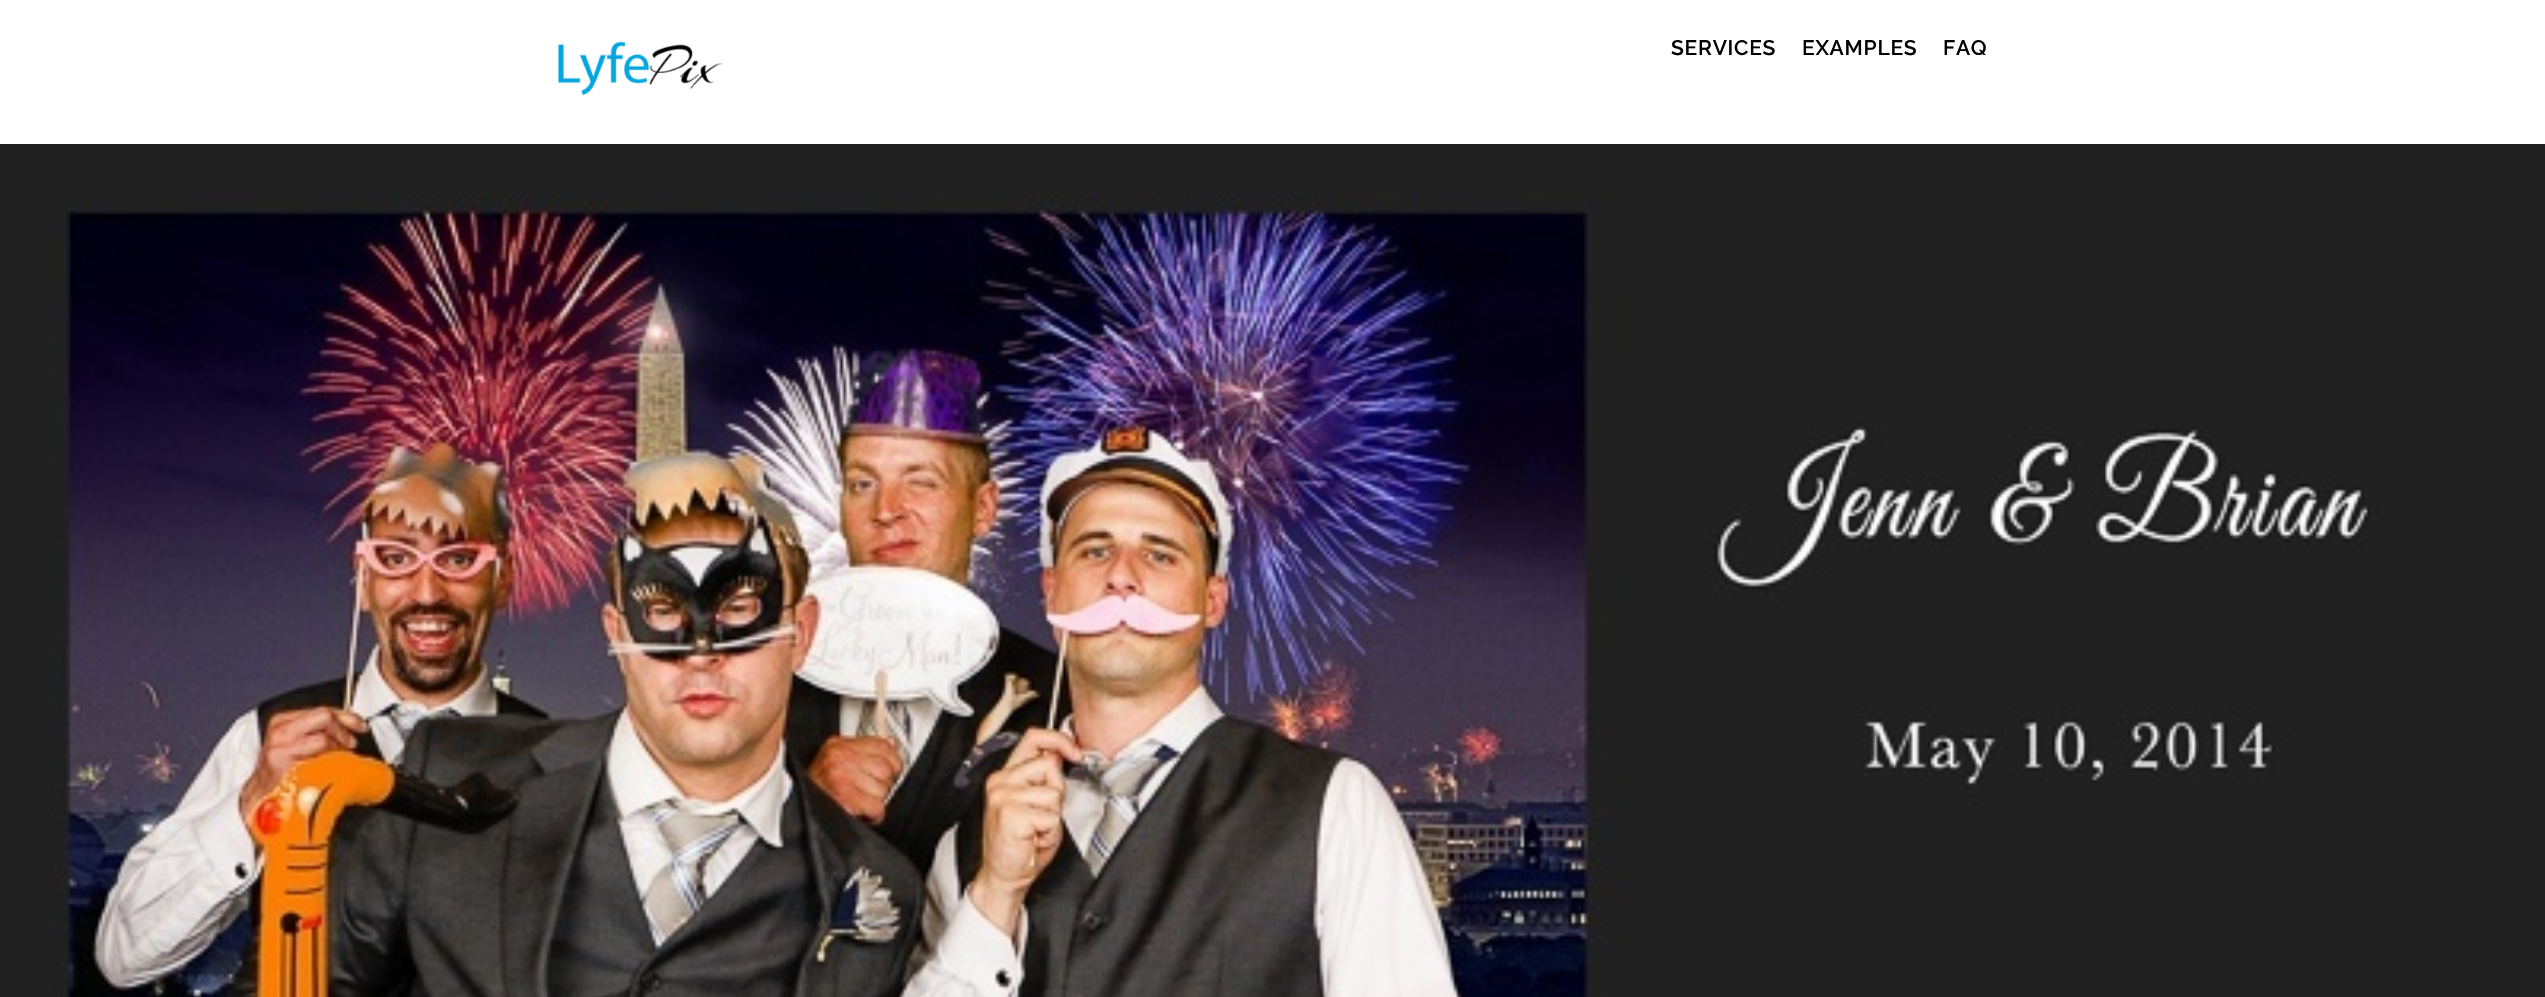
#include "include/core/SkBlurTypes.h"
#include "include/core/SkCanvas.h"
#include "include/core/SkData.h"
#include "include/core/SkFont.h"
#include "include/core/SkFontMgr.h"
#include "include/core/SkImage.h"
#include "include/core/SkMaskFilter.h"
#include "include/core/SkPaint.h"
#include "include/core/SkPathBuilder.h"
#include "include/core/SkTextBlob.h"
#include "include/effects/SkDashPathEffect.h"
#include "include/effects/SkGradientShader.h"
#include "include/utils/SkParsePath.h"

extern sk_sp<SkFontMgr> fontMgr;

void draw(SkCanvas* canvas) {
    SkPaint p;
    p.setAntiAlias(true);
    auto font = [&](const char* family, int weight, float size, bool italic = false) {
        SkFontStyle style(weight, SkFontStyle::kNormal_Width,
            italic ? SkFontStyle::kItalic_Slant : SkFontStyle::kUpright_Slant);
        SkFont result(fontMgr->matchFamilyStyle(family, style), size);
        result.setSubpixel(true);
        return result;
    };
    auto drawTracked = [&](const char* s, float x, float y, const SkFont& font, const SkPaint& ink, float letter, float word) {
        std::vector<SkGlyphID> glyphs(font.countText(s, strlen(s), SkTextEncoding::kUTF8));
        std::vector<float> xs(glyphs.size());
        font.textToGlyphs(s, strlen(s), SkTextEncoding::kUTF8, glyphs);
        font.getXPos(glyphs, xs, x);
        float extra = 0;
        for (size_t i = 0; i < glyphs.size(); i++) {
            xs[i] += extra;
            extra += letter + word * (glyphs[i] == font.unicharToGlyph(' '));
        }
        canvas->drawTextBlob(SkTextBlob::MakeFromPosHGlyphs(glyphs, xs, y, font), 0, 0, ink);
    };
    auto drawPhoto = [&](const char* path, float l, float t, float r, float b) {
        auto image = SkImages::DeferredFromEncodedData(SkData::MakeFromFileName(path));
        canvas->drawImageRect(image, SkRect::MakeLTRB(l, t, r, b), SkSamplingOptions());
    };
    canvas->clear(0xFFFFFFFF);
    drawPhoto("media/1.png", 558, 41, 723, 96);
    auto font1 = font("Raleway", 600, 21);
    p.setColor(0xFF000000);
    {
        const struct { const char* s; float x, y; } items[] = {
            {"SERVICES", 1671, 55},
            {"EXAMPLES", 1802, 55},
            {"FAQ", 1943, 55},
        };
        for (auto [s, x, y] : items) {
            drawTracked(s, x, y, font1, p, 0.75f, 0);
        }
    }
    drawPhoto("media/2.png", 0, 144, 2545, 997);
}
